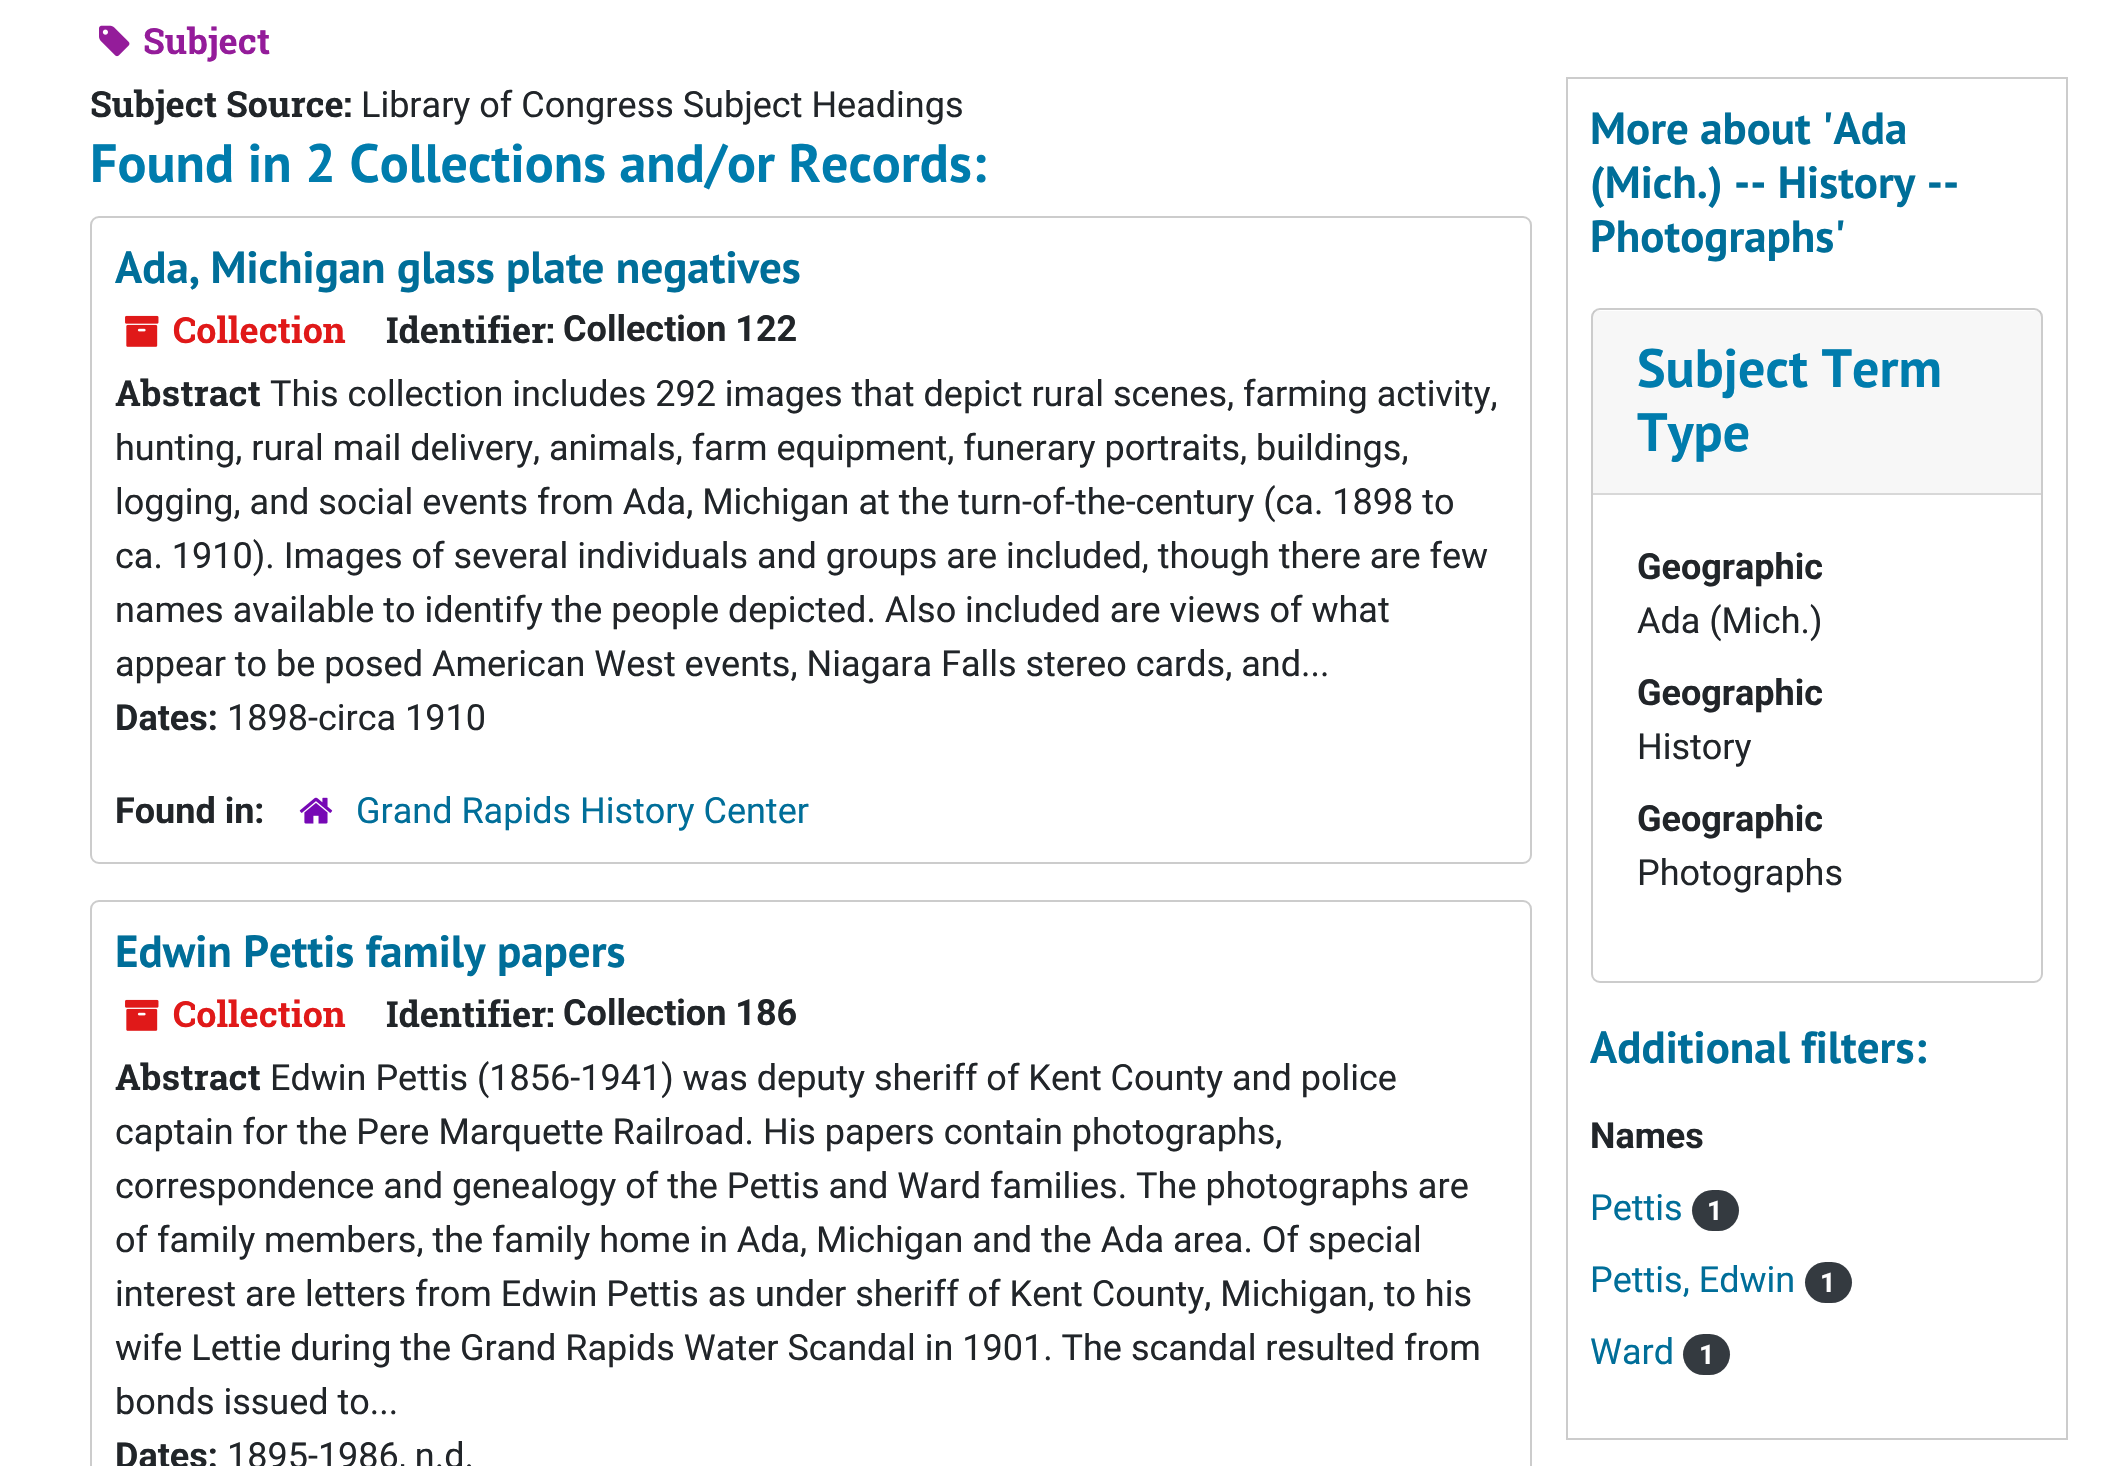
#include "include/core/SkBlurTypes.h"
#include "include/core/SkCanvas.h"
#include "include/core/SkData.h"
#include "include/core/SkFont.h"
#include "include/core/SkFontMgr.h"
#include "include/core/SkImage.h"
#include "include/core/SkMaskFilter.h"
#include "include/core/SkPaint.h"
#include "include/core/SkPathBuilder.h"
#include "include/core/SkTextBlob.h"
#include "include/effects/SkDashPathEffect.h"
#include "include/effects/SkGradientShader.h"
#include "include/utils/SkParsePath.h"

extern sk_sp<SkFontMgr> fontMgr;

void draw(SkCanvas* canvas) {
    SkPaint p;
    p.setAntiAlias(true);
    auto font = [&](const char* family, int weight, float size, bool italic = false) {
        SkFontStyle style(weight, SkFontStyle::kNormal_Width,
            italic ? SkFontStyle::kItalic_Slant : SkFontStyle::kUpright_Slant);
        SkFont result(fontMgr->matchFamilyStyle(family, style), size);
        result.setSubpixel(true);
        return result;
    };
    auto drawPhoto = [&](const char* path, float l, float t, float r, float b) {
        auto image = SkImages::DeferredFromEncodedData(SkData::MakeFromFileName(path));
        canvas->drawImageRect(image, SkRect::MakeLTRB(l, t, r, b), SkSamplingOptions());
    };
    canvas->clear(0xFFFFFFFF);
    drawPhoto("media/1.png", 99, 25, 130, 57);
    auto font1 = font("Roboto Slab", 700, 36);
    p.setColor(0xFF941C9A);
    canvas->drawString("Subject", 143, 54, font1, p);
    p.setColor(0xFF212529);
    canvas->drawString("Subject Source:", 90, 117, font1, p);
    auto font2 = font("Roboto", 400, 36);
    canvas->drawString("Library of Congress Subject Headings", 361, 117, font2, p);
    auto font3 = font("PT Sans", 700, 54);
    p.setColor(0xFF007CAD);
    canvas->drawString("Found in 2 Collections and/or Records:", 90, 182, font3, p);
    p.setStyle(SkPaint::kStroke_Style);
    p.setStrokeWidth(2);
    p.setColor(0xFFCCCCCC);
    canvas->drawRoundRect(SkRect::MakeLTRB(91, 217, 1531, 863), 8, 8, p);
    auto font4 = font("PT Sans", 700, 45);
    p.setStyle(SkPaint::kFill_Style);
    p.setColor(0xFF006E99);
    canvas->drawString("Ada, Michigan glass plate negatives", 115, 283, font4, p);
    drawPhoto("media/2.png", 125, 315, 159, 347);
    p.setColor(0xFFE01919);
    canvas->drawString("Collection", 173, 343, font1, p);
    p.setColor(0xFF212529);
    canvas->drawString("Identifier:", 386, 343, font1, p);
    auto font5 = font("Roboto", 700, 36);
    canvas->drawString("Collection 122", 563, 341, font5, p);
    canvas->drawString("Abstract", 115, 406, font1, p);
    {
        const struct { const char* s; float x, y; } items[] = {
            {"This collection includes 292 images that depict rural scenes, farming activity,", 270, 406},
            {"hunting, rural mail delivery, animals, farm equipment, funerary portraits, buildings,", 115, 460},
            {"logging, and social events from Ada, Michigan at the turn-of-the-century (ca. 1898 to", 115, 514},
            {"ca. 1910). Images of several individuals and groups are included, though there are few", 115, 568},
            {"names available to identify the people depicted. Also included are views of what", 115, 622},
            {"appear to be posed American West events, Niagara Falls stereo cards, and...", 115, 676},
        };
        for (auto [s, x, y] : items) {
            canvas->drawString(s, x, y, font2, p);
        }
    }
    canvas->drawString("Dates:", 115, 730, font5, p);
    canvas->drawString("1898-circa 1910", 227, 730, font2, p);
    canvas->drawString("Found in:", 115, 823, font5, p);
    drawPhoto("media/3.png", 299, 797, 333, 824);
    p.setColor(0xFF006E99);
    canvas->drawString("Grand Rapids History Center", 356, 823, font2, p);
    p.setStyle(SkPaint::kStroke_Style);
    p.setColor(0xFFCCCCCC);
    canvas->drawRoundRect(SkRect::MakeLTRB(91, 901, 1531, 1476), 8, 8, p);
    p.setStyle(SkPaint::kFill_Style);
    p.setColor(0xFF006E99);
    canvas->drawString("Edwin Pettis family papers", 115, 967, font4, p);
    drawPhoto("media/2.png", 125, 999, 159, 1031);
    p.setColor(0xFFE01919);
    canvas->drawString("Collection", 173, 1027, font1, p);
    p.setColor(0xFF212529);
    canvas->drawString("Identifier:", 386, 1027, font1, p);
    canvas->drawString("Collection 186", 563, 1025, font5, p);
    canvas->drawString("Abstract", 115, 1090, font1, p);
    {
        const struct { const char* s; float x, y; } items[] = {
            {"Edwin Pettis (1856-1941) was deputy sheriff of Kent County and police", 270, 1090},
            {"captain for the Pere Marquette Railroad. His papers contain photographs,", 115, 1144},
            {"correspondence and genealogy of the Pettis and Ward families. The photographs are", 115, 1198},
            {"of family members, the family home in Ada, Michigan and the Ada area. Of special", 115, 1252},
            {"interest are letters from Edwin Pettis as under sheriff of Kent County, Michigan, to his", 115, 1306},
            {"wife Lettie during the Grand Rapids Water Scandal in 1901. The scandal resulted from", 115, 1360},
            {"bonds issued to...", 115, 1414},
        };
        for (auto [s, x, y] : items) {
            canvas->drawString(s, x, y, font2, p);
        }
    }
    canvas->drawString("Dates:", 115, 1468, font5, p);
    canvas->drawString("1895-1986, n.d.", 227, 1468, font2, p);
    p.setStyle(SkPaint::kStroke_Style);
    p.setColor(0xFFCCCCCC);
    canvas->drawRect(SkRect::MakeLTRB(1567, 78, 2067, 1439), p);
    p.setStyle(SkPaint::kFill_Style);
    p.setColor(0xFF006E99);
    {
        const struct { const char* s; float x, y; } items[] = {
            {"More about 'Ada", 1590, 144},
            {"(Mich.) -- History --", 1590, 198},
            {"Photographs'", 1590, 252},
        };
        for (auto [s, x, y] : items) {
            canvas->drawString(s, x, y, font4, p);
        }
    }
    p.setStyle(SkPaint::kStroke_Style);
    p.setColor(0xFFCCCCCC);
    canvas->drawRoundRect(SkRect::MakeLTRB(1592, 309, 2042, 982), 8, 8, p);
    p.setStyle(SkPaint::kFill_Style);
    p.setColor(0x08000000);
    canvas->drawRect(SkRect::MakeLTRB(1593, 311, 2041, 493), p);
    p.setColor(0xFFD8D8D8);
    canvas->drawRect(SkRect::MakeLTRB(1593, 493, 2041, 495), p);
    p.setColor(0xFF007CAD);
    canvas->drawString("Subject Term", 1637, 387, font3, p);
    canvas->drawString("Type", 1637, 451, font3, p);
    p.setColor(0xFF212529);
    canvas->drawString("Geographic", 1637, 579, font5, p);
    canvas->drawString("Ada (Mich.)", 1637, 633, font2, p);
    canvas->drawString("Geographic", 1637, 705, font5, p);
    canvas->drawString("History", 1637, 759, font2, p);
    canvas->drawString("Geographic", 1637, 831, font5, p);
    canvas->drawString("Photographs", 1637, 885, font2, p);
    p.setColor(0xFF006E99);
    canvas->drawString("Additional filters:", 1590, 1063, font4, p);
    p.setColor(0xFF212529);
    canvas->drawString("Names", 1590, 1148, font5, p);
    p.setColor(0xFF006E99);
    canvas->drawString("Pettis", 1590, 1220, font2, p);
    p.setColor(0xFF343A40);
    canvas->drawRoundRect(SkRect::MakeLTRB(1692, 1190, 1739, 1231), 20.5f, 20.5f, p);
    auto font6 = font("Roboto", 700, 27);
    p.setColor(0xFFFFFFFF);
    canvas->drawString("1", 1707, 1220, font6, p);
    p.setColor(0xFF006E99);
    canvas->drawString("Pettis, Edwin", 1590, 1292, font2, p);
    p.setColor(0xFF343A40);
    canvas->drawRoundRect(SkRect::MakeLTRB(1805, 1262, 1852, 1303), 20.5f, 20.5f, p);
    p.setColor(0xFFFFFFFF);
    canvas->drawString("1", 1820, 1292, font6, p);
    p.setColor(0xFF006E99);
    canvas->drawString("Ward", 1590, 1364, font2, p);
    p.setColor(0xFF343A40);
    canvas->drawRoundRect(SkRect::MakeLTRB(1683, 1334, 1730, 1375), 20.5f, 20.5f, p);
    p.setColor(0xFFFFFFFF);
    canvas->drawString("1", 1699, 1364, font6, p);
}
